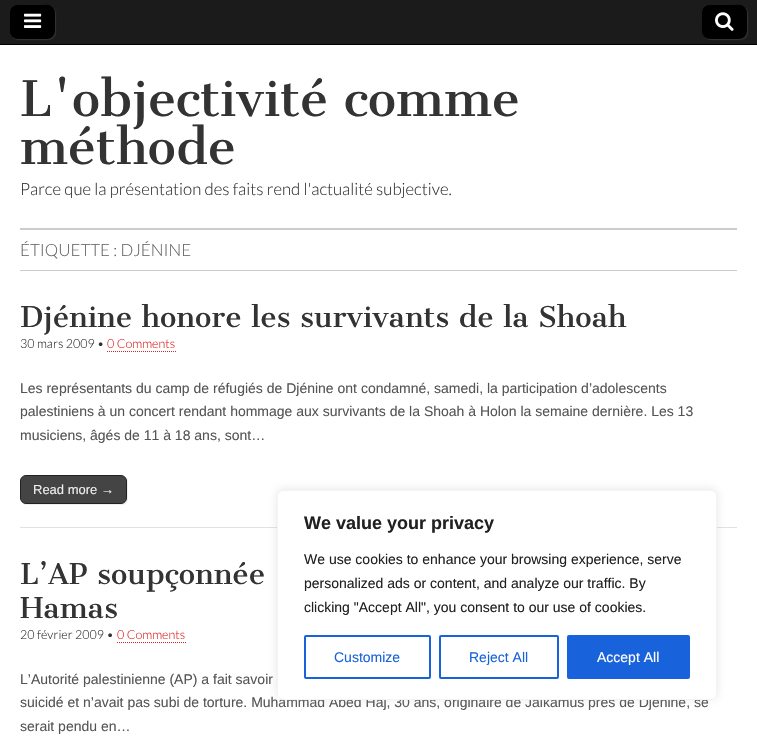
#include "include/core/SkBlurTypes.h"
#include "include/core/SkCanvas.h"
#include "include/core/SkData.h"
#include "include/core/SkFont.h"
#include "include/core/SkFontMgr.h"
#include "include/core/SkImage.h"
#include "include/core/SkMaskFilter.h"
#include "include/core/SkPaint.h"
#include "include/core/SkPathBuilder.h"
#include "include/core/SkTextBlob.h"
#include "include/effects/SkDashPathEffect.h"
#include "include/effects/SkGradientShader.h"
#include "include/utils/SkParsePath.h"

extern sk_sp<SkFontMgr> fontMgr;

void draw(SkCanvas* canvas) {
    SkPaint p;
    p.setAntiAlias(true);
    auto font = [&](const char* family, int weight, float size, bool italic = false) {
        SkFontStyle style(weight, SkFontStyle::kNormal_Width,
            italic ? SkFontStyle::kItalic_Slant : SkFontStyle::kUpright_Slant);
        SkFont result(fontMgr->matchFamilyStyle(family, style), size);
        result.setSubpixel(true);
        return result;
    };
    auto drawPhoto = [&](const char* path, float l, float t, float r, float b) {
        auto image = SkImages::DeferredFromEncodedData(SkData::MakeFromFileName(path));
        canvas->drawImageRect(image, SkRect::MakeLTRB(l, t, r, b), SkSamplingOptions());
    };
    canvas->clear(0xFFFFFFFF);
    p.setColor(0xFF1B1B1B);
    canvas->drawRect(SkRect::MakeLTRB(0, 0, 757, 44), p);
    p.setColor(0xFF000000);
    canvas->drawRect(SkRect::MakeLTRB(0, 44, 757, 45), p);
    p.setColor(0xFF333333);
    p.setMaskFilter(SkMaskFilter::MakeBlur(kNormal_SkBlurStyle, 0.5f));
    canvas->drawRoundRect(SkRect::MakeLTRB(11, 6, 56, 40), 8, 8, p);
    p.setMaskFilter(nullptr);
    p.setColor(0xFF000000);
    canvas->drawRoundRect(SkRect::MakeLTRB(10, 5, 55, 39), 8, 8, p);
    canvas->drawPath(SkPathBuilder().moveTo(19, 6).lineTo(50, 6).lineTo(52, 7).cubicTo(49, 4, 46, 5, 42, 5).lineTo(32, 5).cubicTo(10, 5, 10, 3, 10, 25).cubicTo(10, 29, 9, 34, 13, 37).cubicTo(10, 33, 10, 13, 13, 9).cubicTo(14, 7, 16, 6, 19, 6).close().detach(), p);
    drawPhoto("media/1.png", 24, 13, 42, 28);
    p.setColor(0xFF333333);
    p.setMaskFilter(SkMaskFilter::MakeBlur(kNormal_SkBlurStyle, 0.5f));
    canvas->drawRoundRect(SkRect::MakeLTRB(703, 6, 748, 40), 8, 8, p);
    p.setMaskFilter(nullptr);
    p.setColor(0xFF000000);
    canvas->drawRoundRect(SkRect::MakeLTRB(702, 5, 747, 39), 8, 8, p);
    canvas->drawPath(SkPathBuilder().moveTo(711, 6).lineTo(742, 6).lineTo(744, 7).cubicTo(741, 4, 738, 5, 734, 5).lineTo(724, 5).cubicTo(702, 5, 702, 3, 702, 25).cubicTo(702, 29, 701, 34, 705, 37).cubicTo(702, 33, 702, 13, 705, 9).cubicTo(706, 7, 708, 6, 711, 6).close().detach(), p);
    drawPhoto("media/2.png", 715, 12, 734, 31);
    auto font1 = font("Cantata One", 400, 48);
    p.setColor(0xFF333333);
    canvas->drawString("L'objectivité comme", 20, 116, font1, p);
    canvas->drawString("méthode", 20, 164, font1, p);
    auto font2 = font("Lato", 300, 16.8f);
    canvas->drawString("Parce que la présentation des faits rend l'actualité subjective.", 20, 195, font2, p);
    p.setColor(0xFFCCCCCC);
    canvas->drawRect(SkRect::MakeLTRB(20, 228, 737, 230), p);
    canvas->drawRect(SkRect::MakeLTRB(20, 270, 737, 271), p);
    p.setColor(0xFF666666);
    canvas->drawString("ÉTIQUETTE : DJÉNINE", 20, 256, font2, p);
    auto font3 = font("Cantata One", 400, 28);
    p.setColor(0xFF333333);
    canvas->drawString("Djénine honore les survivants de la Shoah", 20, 327, font3, p);
    auto font4 = font("Lato", 300, 12.5f);
    canvas->drawString("30 mars 2009 •", 20, 348, font4, p);
    p.setColor(0xFFDD2323);
    canvas->drawString("0 Comments", 107, 348, font4, p);
    p.setStyle(SkPaint::kStroke_Style);
    p.setStrokeWidth(1);
    p.setPathEffect(SkDashPathEffect::Make({{1, 1}}, 0));
    canvas->drawPath(SkPathBuilder().moveTo(107, 351.5f).lineTo(176, 351.5f).detach(), p);
    p.setPathEffect(nullptr);
    p.setStyle(SkPaint::kFill_Style);
    p.setColor(0xFFE2E2E2);
    canvas->drawRect(SkRect::MakeLTRB(20, 527, 737, 528), p);
    auto font5 = font("Liberation Sans", 400, 14);
    p.setColor(0xFF555555);
    {
        const struct { const char* s; float x, y; } items[] = {
            {"Les représentants du camp de réfugiés de Djénine ont condamné, samedi, la participation d’adolescents", 20, 393},
            {"palestiniens à un concert rendant hommage aux survivants de la Shoah à Holon la semaine dernière. Les 13", 20, 416},
            {"musiciens, âgés de 11 à 18 ans, sont…", 20, 440},
        };
        for (auto [s, x, y] : items) {
            canvas->drawString(s, x, y, font5, p);
        }
    }
    p.setColor(0xFFEEEEEE);
    canvas->drawPath(SkPathBuilder().moveTo(22, 503).cubicTo(23, 504, 25, 505, 27, 505).lineTo(122, 505).cubicTo(125, 505, 128, 502, 128, 499).lineTo(128, 482).cubicTo(128, 480, 127, 478, 126, 477).cubicTo(127, 478, 127, 480, 127, 481).lineTo(127, 498).cubicTo(127, 501, 124, 504, 121, 504).lineTo(26, 504).cubicTo(25, 504, 23, 504, 22, 503).close().detach(), p);
    p.setColor(0xFF444444);
    canvas->drawRoundRect(SkRect::MakeLTRB(20.5f, 475.5f, 126.5f, 503.5f), 5.5f, 5.5f, p);
    p.setStyle(SkPaint::kStroke_Style);
    p.setColor(0xFF222222);
    canvas->drawRoundRect(SkRect::MakeLTRB(20.5f, 475.5f, 126.5f, 503.5f), 5.5f, 5.5f, p);
    auto font6 = font("Liberation Sans", 400, 13);
    p.setStyle(SkPaint::kFill_Style);
    p.setColor(0xFFEEEEEE);
    canvas->drawString("Read more →", 33, 494, font6, p);
    p.setColor(0xFF333333);
    canvas->drawString("L’AP soupçonnée", 20, 584, font3, p);
    canvas->drawString("Hamas", 20, 618, font3, p);
    canvas->drawString("20 février 2009 •", 20, 639, font4, p);
    p.setColor(0xFFDD2323);
    canvas->drawString("0 Comments", 117, 639, font4, p);
    p.setStyle(SkPaint::kStroke_Style);
    p.setPathEffect(SkDashPathEffect::Make({{1, 1}}, 0));
    canvas->drawPath(SkPathBuilder().moveTo(117, 642.5f).lineTo(186, 642.5f).detach(), p);
    p.setPathEffect(nullptr);
    p.setStyle(SkPaint::kFill_Style);
    p.setColor(0xFF555555);
    {
        const struct { const char* s; float x, y; } items[] = {
            {"L’Autorité palestinienne (AP) a fait savoir", 20, 684},
            {"suicidé et n’avait pas subi de torture. Muhammad Abed Haj, 30 ans, originaire de Jalkamus près de Djénine, se", 20, 707},
            {"serait pendu en…", 20, 731},
        };
        for (auto [s, x, y] : items) {
            canvas->drawString(s, x, y, font5, p);
        }
    }
    p.setColor(0x4DACABAB);
    p.setMaskFilter(SkMaskFilter::MakeBlur(kNormal_SkBlurStyle, 5));
    canvas->drawRoundRect(SkRect::MakeLTRB(277, 489, 717, 699), 6, 6, p);
    p.setMaskFilter(nullptr);
    p.setColor(0xFFFFFFFF);
    canvas->drawRoundRect(SkRect::MakeLTRB(277.5f, 490.5f, 716.5f, 699.5f), 5.5f, 5.5f, p);
    p.setStyle(SkPaint::kStroke_Style);
    p.setColor(0xFFF4F4F4);
    canvas->drawRoundRect(SkRect::MakeLTRB(277.5f, 490.5f, 716.5f, 699.5f), 5.5f, 5.5f, p);
    auto font7 = font("Liberation Sans", 700, 18);
    p.setStyle(SkPaint::kFill_Style);
    p.setColor(0xFF212121);
    canvas->drawString("We value your privacy", 304, 529, font7, p);
    {
        const struct { const char* s; float x, y; } items[] = {
            {"We use cookies to enhance your browsing experience, serve", 304, 564},
            {"personalized ads or content, and analyze our traffic. By", 304, 588},
            {"clicking \"Accept All\", you consent to our use of cookies.", 304, 612},
        };
        for (auto [s, x, y] : items) {
            canvas->drawString(s, x, y, font5, p);
        }
    }
    p.setStyle(SkPaint::kStroke_Style);
    p.setStrokeWidth(2);
    p.setColor(0xFF1863DC);
    canvas->drawRoundRect(SkRect::MakeLTRB(305, 636, 430, 678), 1, 1, p);
    p.setStyle(SkPaint::kFill_Style);
    canvas->drawString("Customize", 334, 662, font5, p);
    p.setStyle(SkPaint::kStroke_Style);
    canvas->drawRoundRect(SkRect::MakeLTRB(440, 636, 558, 678), 1, 1, p);
    p.setStyle(SkPaint::kFill_Style);
    canvas->drawString("Reject All", 469, 662, font5, p);
    canvas->drawRoundRect(SkRect::MakeLTRB(568, 636, 689, 678), 1, 1, p);
    p.setStyle(SkPaint::kStroke_Style);
    canvas->drawRoundRect(SkRect::MakeLTRB(568, 636, 689, 678), 1, 1, p);
    p.setStyle(SkPaint::kFill_Style);
    p.setColor(0xFFFFFFFF);
    canvas->drawString("Accept All", 597, 662, font5, p);
}
